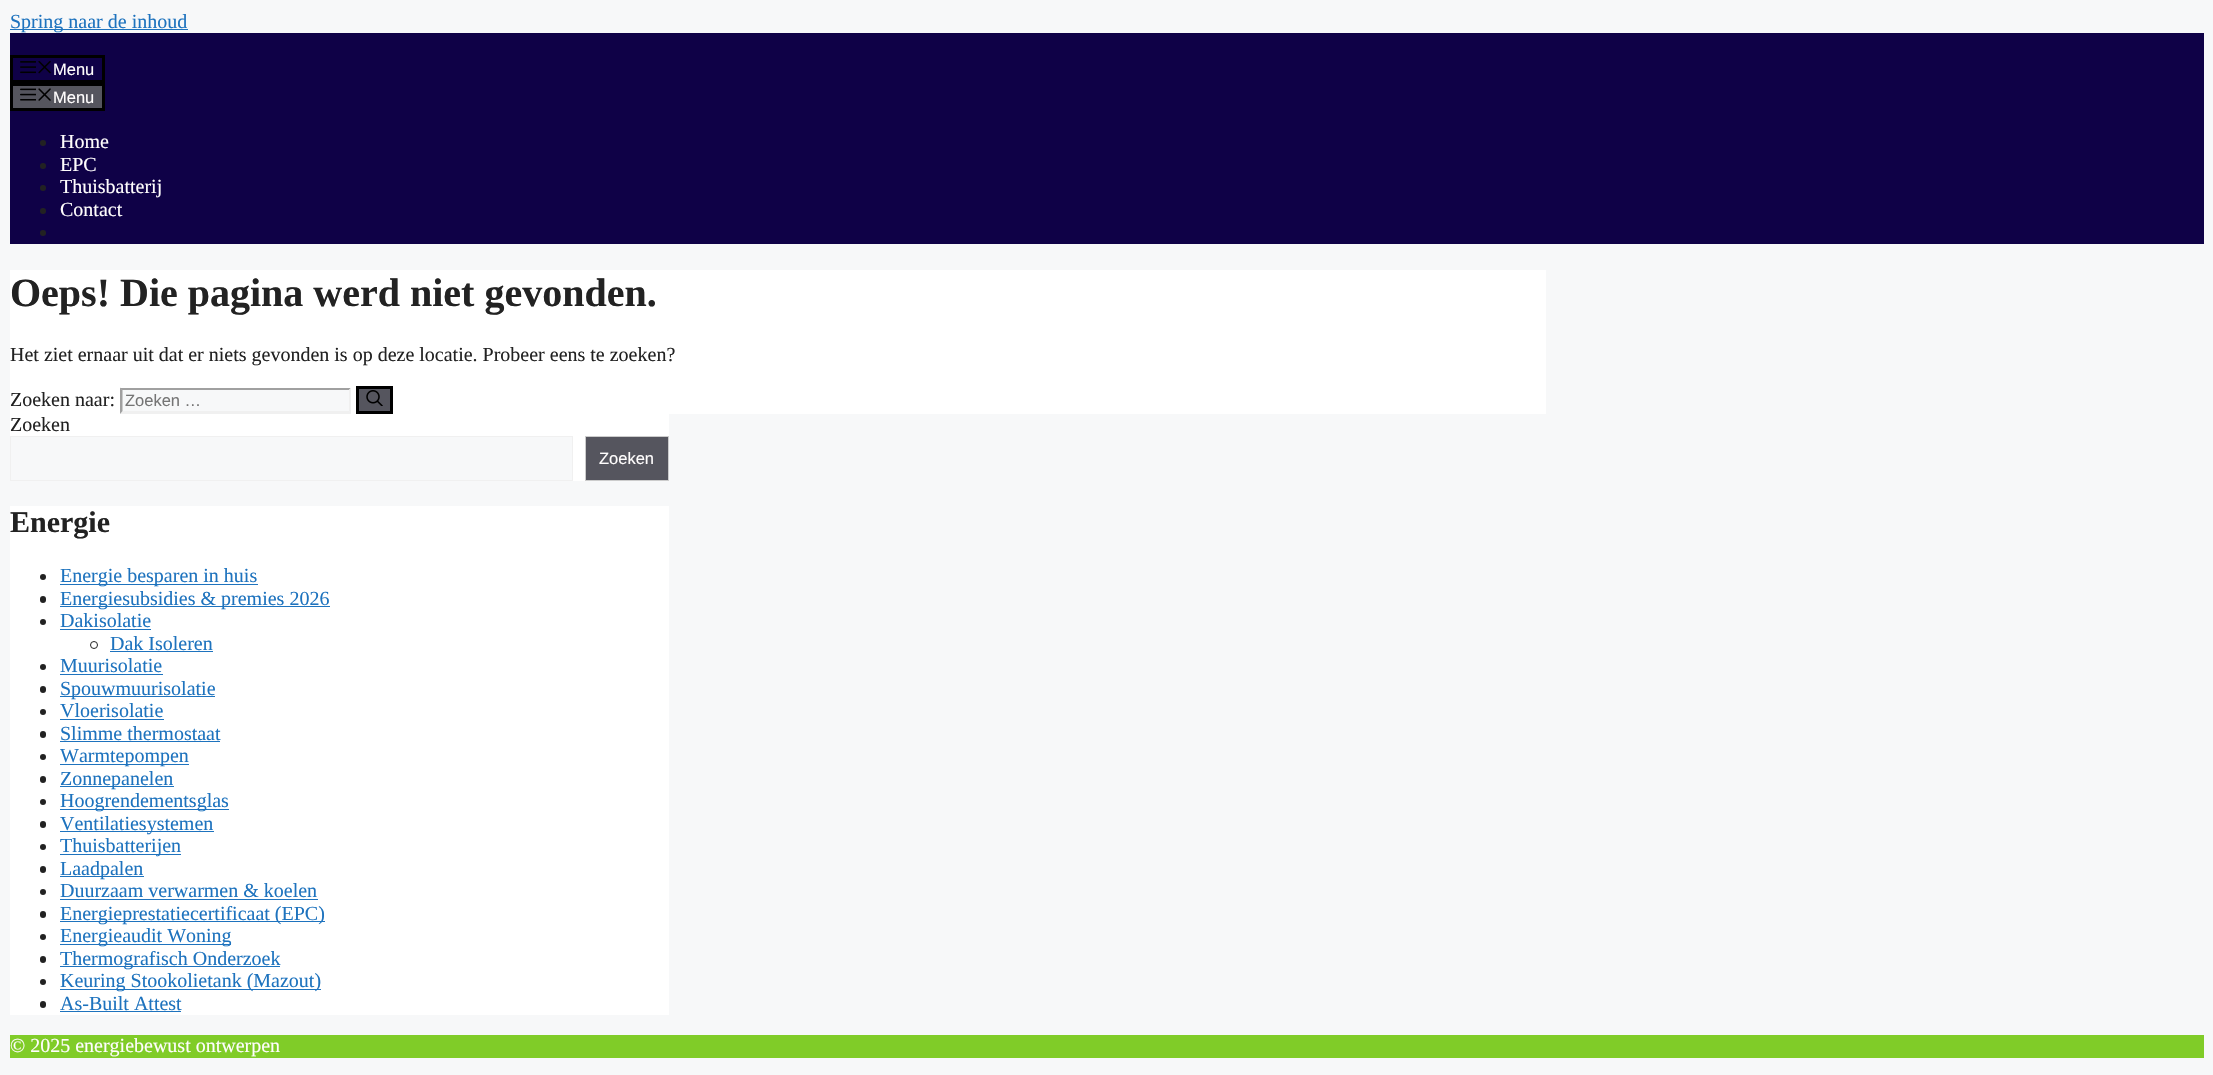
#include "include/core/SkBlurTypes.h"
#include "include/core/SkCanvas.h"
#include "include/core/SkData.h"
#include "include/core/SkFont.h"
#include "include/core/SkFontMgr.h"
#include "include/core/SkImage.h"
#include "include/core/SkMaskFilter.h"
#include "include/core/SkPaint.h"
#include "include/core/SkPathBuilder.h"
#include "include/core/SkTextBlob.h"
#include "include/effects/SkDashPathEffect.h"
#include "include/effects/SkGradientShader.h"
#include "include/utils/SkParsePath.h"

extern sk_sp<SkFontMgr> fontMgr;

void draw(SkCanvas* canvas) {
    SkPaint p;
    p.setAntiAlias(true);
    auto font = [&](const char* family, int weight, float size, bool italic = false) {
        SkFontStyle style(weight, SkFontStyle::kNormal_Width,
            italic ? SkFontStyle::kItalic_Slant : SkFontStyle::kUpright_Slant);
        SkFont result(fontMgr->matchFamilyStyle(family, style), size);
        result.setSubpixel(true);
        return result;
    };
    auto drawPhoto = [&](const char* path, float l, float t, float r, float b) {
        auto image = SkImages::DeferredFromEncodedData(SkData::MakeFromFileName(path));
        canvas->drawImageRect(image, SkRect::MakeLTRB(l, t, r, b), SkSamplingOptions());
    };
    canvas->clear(0xFFF7F8F9);
    p.setColor(0xFF1E73BE);
    canvas->drawRect(SkRect::MakeLTRB(10, 29, 188, 30), p);
    auto font1 = font("Liberation Serif", 400, 20);
    canvas->drawString("Spring naar de inhoud", 10, 28, font1, p);
    p.setColor(0xFF0F0147);
    canvas->drawRect(SkRect::MakeLTRB(10, 33, 2204, 244), p);
    p.setStyle(SkPaint::kStroke_Style);
    p.setStrokeWidth(3);
    p.setColor(0xFF000000);
    canvas->drawRect(SkRect::MakeLTRB(11.5f, 56.5f, 103.5f, 81.5f), p);
    drawPhoto("media/1.png", 20, 61, 36, 74);
    drawPhoto("media/2.png", 38, 61, 51, 74);
    auto font2 = font("Liberation Sans", 400, 16.5f);
    p.setStyle(SkPaint::kFill_Style);
    p.setColor(0xFFFFFDFD);
    canvas->drawString("Menu", 53, 75, font2, p);
    p.setColor(0xFF55555E);
    canvas->drawRect(SkRect::MakeLTRB(11.5f, 84.5f, 103.5f, 109.5f), p);
    p.setStyle(SkPaint::kStroke_Style);
    p.setColor(0xFF000000);
    canvas->drawRect(SkRect::MakeLTRB(11.5f, 84.5f, 103.5f, 109.5f), p);
    drawPhoto("media/3.png", 20, 88, 36, 101);
    drawPhoto("media/4.png", 38, 88, 51, 101);
    p.setStyle(SkPaint::kFill_Style);
    p.setColor(0xFFFFFDFD);
    canvas->drawString("Menu", 53, 103, font2, p);
    p.setColor(0xFF222222);
    canvas->drawCircle(43, 143, 3, p);
    p.setColor(0xFFFFFDFD);
    canvas->drawString("Home", 60, 148, font1, p);
    p.setColor(0xFF222222);
    canvas->drawCircle(43, 166, 3, p);
    p.setColor(0xFFFFFDFD);
    canvas->drawString("EPC", 60, 171, font1, p);
    p.setColor(0xFF222222);
    canvas->drawCircle(43, 188, 3, p);
    p.setColor(0xFFFFFDFD);
    canvas->drawString("Thuisbatterij", 60, 193, font1, p);
    p.setColor(0xFF222222);
    canvas->drawCircle(43, 211, 3, p);
    p.setColor(0xFFFFFDFD);
    canvas->drawString("Contact", 60, 216, font1, p);
    p.setColor(0xFF222222);
    canvas->drawCircle(43, 233, 3, p);
    p.setColor(0xFFFFFFFF);
    canvas->drawRect(SkRect::MakeLTRB(10, 270, 1546, 414), p);
    auto font3 = font("Liberation Serif", 700, 40);
    p.setColor(0xFF222222);
    canvas->drawString("Oeps! Die pagina werd niet gevonden.", 10, 306, font3, p);
    canvas->drawString("Het ziet ernaar uit dat er niets gevonden is op deze locatie. Probeer eens te zoeken?", 10, 361, font1, p);
    canvas->drawString("Zoeken naar:", 10, 406, font1, p);
    p.setColor(0xFFF7F8F9);
    canvas->drawRect(SkRect::MakeLTRB(120, 388, 351, 414), p);
    p.setColor(0xFFA0A0A0);
    canvas->drawPath(SkPathBuilder().moveTo(120, 388).lineTo(351, 388).lineTo(349, 390).lineTo(122, 390).close().detach(), p);
    p.setColor(0xFFF0F0F0);
    canvas->drawPath(SkPathBuilder().moveTo(351, 387.5f).lineTo(351, 414).lineTo(349, 411).lineTo(349, 390).close().detach(), p);
    canvas->drawPath(SkPathBuilder().moveTo(351, 414).lineTo(120, 414).lineTo(122, 411).lineTo(349, 411).close().detach(), p);
    p.setColor(0xFFA0A0A0);
    canvas->drawPath(SkPathBuilder().moveTo(120, 414).lineTo(120, 387.5f).lineTo(122.5f, 390).lineTo(122.5f, 411).close().detach(), p);
    p.setColor(0xFF757575);
    canvas->drawString("Zoeken …", 125, 406, font2, p);
    p.setColor(0xFF55555E);
    canvas->drawRect(SkRect::MakeLTRB(357.5f, 387.5f, 391.5f, 412.5f), p);
    p.setStyle(SkPaint::kStroke_Style);
    p.setColor(0xFF000000);
    canvas->drawRect(SkRect::MakeLTRB(357.5f, 387.5f, 391.5f, 412.5f), p);
    drawPhoto("media/5.png", 366, 390, 383, 406);
    p.setStyle(SkPaint::kFill_Style);
    p.setColor(0xFFFFFFFF);
    canvas->drawRect(SkRect::MakeLTRB(10, 414, 669, 481), p);
    p.setColor(0xFF222222);
    canvas->drawString("Zoeken", 10, 431, font1, p);
    p.setColor(0xFFF7F8F9);
    canvas->drawRect(SkRect::MakeLTRB(10.5f, 436.5f, 572.5f, 480.5f), p);
    p.setStyle(SkPaint::kStroke_Style);
    p.setStrokeWidth(1);
    p.setColor(0xFFF0F0F0);
    canvas->drawRect(SkRect::MakeLTRB(10.5f, 436.5f, 572.5f, 480.5f), p);
    p.setStyle(SkPaint::kFill_Style);
    p.setColor(0xFF55555E);
    canvas->drawRect(SkRect::MakeLTRB(585.5f, 436.5f, 668.5f, 480.5f), p);
    p.setStyle(SkPaint::kStroke_Style);
    p.setColor(0xFFCCCCCC);
    canvas->drawRect(SkRect::MakeLTRB(585.5f, 436.5f, 668.5f, 480.5f), p);
    p.setStyle(SkPaint::kFill_Style);
    p.setColor(0xFFFFFDFD);
    canvas->drawString("Zoeken", 599, 464, font2, p);
    p.setColor(0xFFFFFFFF);
    canvas->drawRect(SkRect::MakeLTRB(10, 506, 669, 1015), p);
    auto font4 = font("Liberation Serif", 700, 30);
    p.setColor(0xFF222222);
    canvas->drawString("Energie", 10, 532, font4, p);
    canvas->drawCircle(43, 577, 3, p);
    p.setColor(0xFF1E73BE);
    canvas->drawRect(SkRect::MakeLTRB(60, 584, 258, 585), p);
    canvas->drawString("Energie besparen in huis", 60, 582, font1, p);
    p.setColor(0xFF222222);
    canvas->drawRoundRect(SkRect::MakeLTRB(40, 596, 46, 603), 3, 3, p);
    p.setColor(0xFF1E73BE);
    canvas->drawRect(SkRect::MakeLTRB(60, 606, 330, 607), p);
    canvas->drawString("Energiesubsidies & premies 2026", 60, 605, font1, p);
    p.setColor(0xFF222222);
    canvas->drawCircle(43, 622, 3, p);
    p.setColor(0xFF1E73BE);
    canvas->drawString("Dakisolatie", 60, 627, font1, p);
    canvas->drawRect(SkRect::MakeLTRB(60, 629, 151, 630), p);
    p.setStyle(SkPaint::kStroke_Style);
    p.setColor(0xFF222222);
    canvas->drawCircle(94, 645, 3.5f, p);
    p.setStyle(SkPaint::kFill_Style);
    p.setColor(0xFF1E73BE);
    canvas->drawString("Dak Isoleren", 110, 650, font1, p);
    canvas->drawRect(SkRect::MakeLTRB(110, 651, 213, 652), p);
    p.setColor(0xFF222222);
    canvas->drawCircle(43, 667, 3, p);
    p.setColor(0xFF1E73BE);
    canvas->drawString("Muurisolatie", 60, 672, font1, p);
    canvas->drawRect(SkRect::MakeLTRB(60, 674, 163, 675), p);
    p.setColor(0xFF222222);
    canvas->drawRoundRect(SkRect::MakeLTRB(40, 686, 46, 693), 3, 3, p);
    p.setColor(0xFF1E73BE);
    canvas->drawRect(SkRect::MakeLTRB(60, 696, 215, 697), p);
    canvas->drawString("Spouwmuurisolatie", 60, 695, font1, p);
    p.setColor(0xFF222222);
    canvas->drawCircle(43, 712, 3, p);
    p.setColor(0xFF1E73BE);
    canvas->drawString("Vloerisolatie", 60, 717, font1, p);
    canvas->drawRect(SkRect::MakeLTRB(60, 719, 164, 720), p);
    p.setColor(0xFF222222);
    canvas->drawRoundRect(SkRect::MakeLTRB(40, 731, 46, 738), 3, 3, p);
    p.setColor(0xFF1E73BE);
    canvas->drawString("Slimme thermostaat", 60, 740, font1, p);
    canvas->drawRect(SkRect::MakeLTRB(60, 741, 220, 742), p);
    p.setColor(0xFF222222);
    canvas->drawCircle(43, 757, 3, p);
    p.setColor(0xFF1E73BE);
    canvas->drawRect(SkRect::MakeLTRB(60, 764, 189, 765), p);
    canvas->drawString("Warmtepompen", 60, 762, font1, p);
    p.setColor(0xFF222222);
    canvas->drawRoundRect(SkRect::MakeLTRB(40, 776, 46, 783), 3, 3, p);
    p.setColor(0xFF1E73BE);
    canvas->drawRect(SkRect::MakeLTRB(60, 786, 174, 787), p);
    canvas->drawString("Zonnepanelen", 60, 785, font1, p);
    p.setColor(0xFF222222);
    canvas->drawCircle(43, 802, 3, p);
    p.setColor(0xFF1E73BE);
    canvas->drawRect(SkRect::MakeLTRB(60, 809, 229, 810), p);
    canvas->drawString("Hoogrendementsglas", 60, 807, font1, p);
    p.setColor(0xFF222222);
    canvas->drawRoundRect(SkRect::MakeLTRB(40, 821, 46, 828), 3, 3, p);
    p.setColor(0xFF1E73BE);
    canvas->drawRect(SkRect::MakeLTRB(60, 831, 214, 832), p);
    canvas->drawString("Ventilatiesystemen", 60, 830, font1, p);
    p.setColor(0xFF222222);
    canvas->drawCircle(43, 847, 3, p);
    p.setColor(0xFF1E73BE);
    canvas->drawRect(SkRect::MakeLTRB(60, 854, 181, 855), p);
    canvas->drawString("Thuisbatterijen", 60, 852, font1, p);
    p.setColor(0xFF222222);
    canvas->drawRoundRect(SkRect::MakeLTRB(40, 866, 46, 873), 3, 3, p);
    p.setColor(0xFF1E73BE);
    canvas->drawRect(SkRect::MakeLTRB(60, 876, 144, 877), p);
    canvas->drawString("Laadpalen", 60, 875, font1, p);
    p.setColor(0xFF222222);
    canvas->drawCircle(43, 892, 3, p);
    p.setColor(0xFF1E73BE);
    canvas->drawString("Duurzaam verwarmen & koelen", 60, 897, font1, p);
    canvas->drawRect(SkRect::MakeLTRB(60, 899, 318, 900), p);
    p.setColor(0xFF222222);
    canvas->drawRoundRect(SkRect::MakeLTRB(40, 911, 46, 918), 3, 3, p);
    p.setColor(0xFF1E73BE);
    canvas->drawRect(SkRect::MakeLTRB(60, 921, 325, 922), p);
    canvas->drawString("Energieprestatiecertificaat (EPC)", 60, 920, font1, p);
    p.setColor(0xFF222222);
    canvas->drawCircle(43, 937, 3, p);
    p.setColor(0xFF1E73BE);
    canvas->drawRect(SkRect::MakeLTRB(60, 944, 231, 945), p);
    canvas->drawString("Energieaudit Woning", 60, 942, font1, p);
    p.setColor(0xFF222222);
    canvas->drawRoundRect(SkRect::MakeLTRB(40, 956, 46, 963), 3, 3, p);
    p.setColor(0xFF1E73BE);
    canvas->drawRect(SkRect::MakeLTRB(60, 966, 280, 967), p);
    canvas->drawString("Thermografisch Onderzoek", 60, 965, font1, p);
    p.setColor(0xFF222222);
    canvas->drawCircle(43, 982, 3, p);
    p.setColor(0xFF1E73BE);
    canvas->drawRect(SkRect::MakeLTRB(60, 989, 321, 990), p);
    canvas->drawString("Keuring Stookolietank (Mazout)", 60, 987, font1, p);
    p.setColor(0xFF222222);
    canvas->drawRoundRect(SkRect::MakeLTRB(40, 1001, 46, 1008), 3, 3, p);
    p.setColor(0xFF1E73BE);
    canvas->drawString("As-Built Attest", 60, 1010, font1, p);
    canvas->drawRect(SkRect::MakeLTRB(60, 1011, 181, 1012), p);
    p.setColor(0xFF80CC28);
    canvas->drawRect(SkRect::MakeLTRB(10, 1035, 2204, 1058), p);
    p.setColor(0xFFFFFDFD);
    canvas->drawString("© 2025 energiebewust ontwerpen", 10, 1052, font1, p);
}
